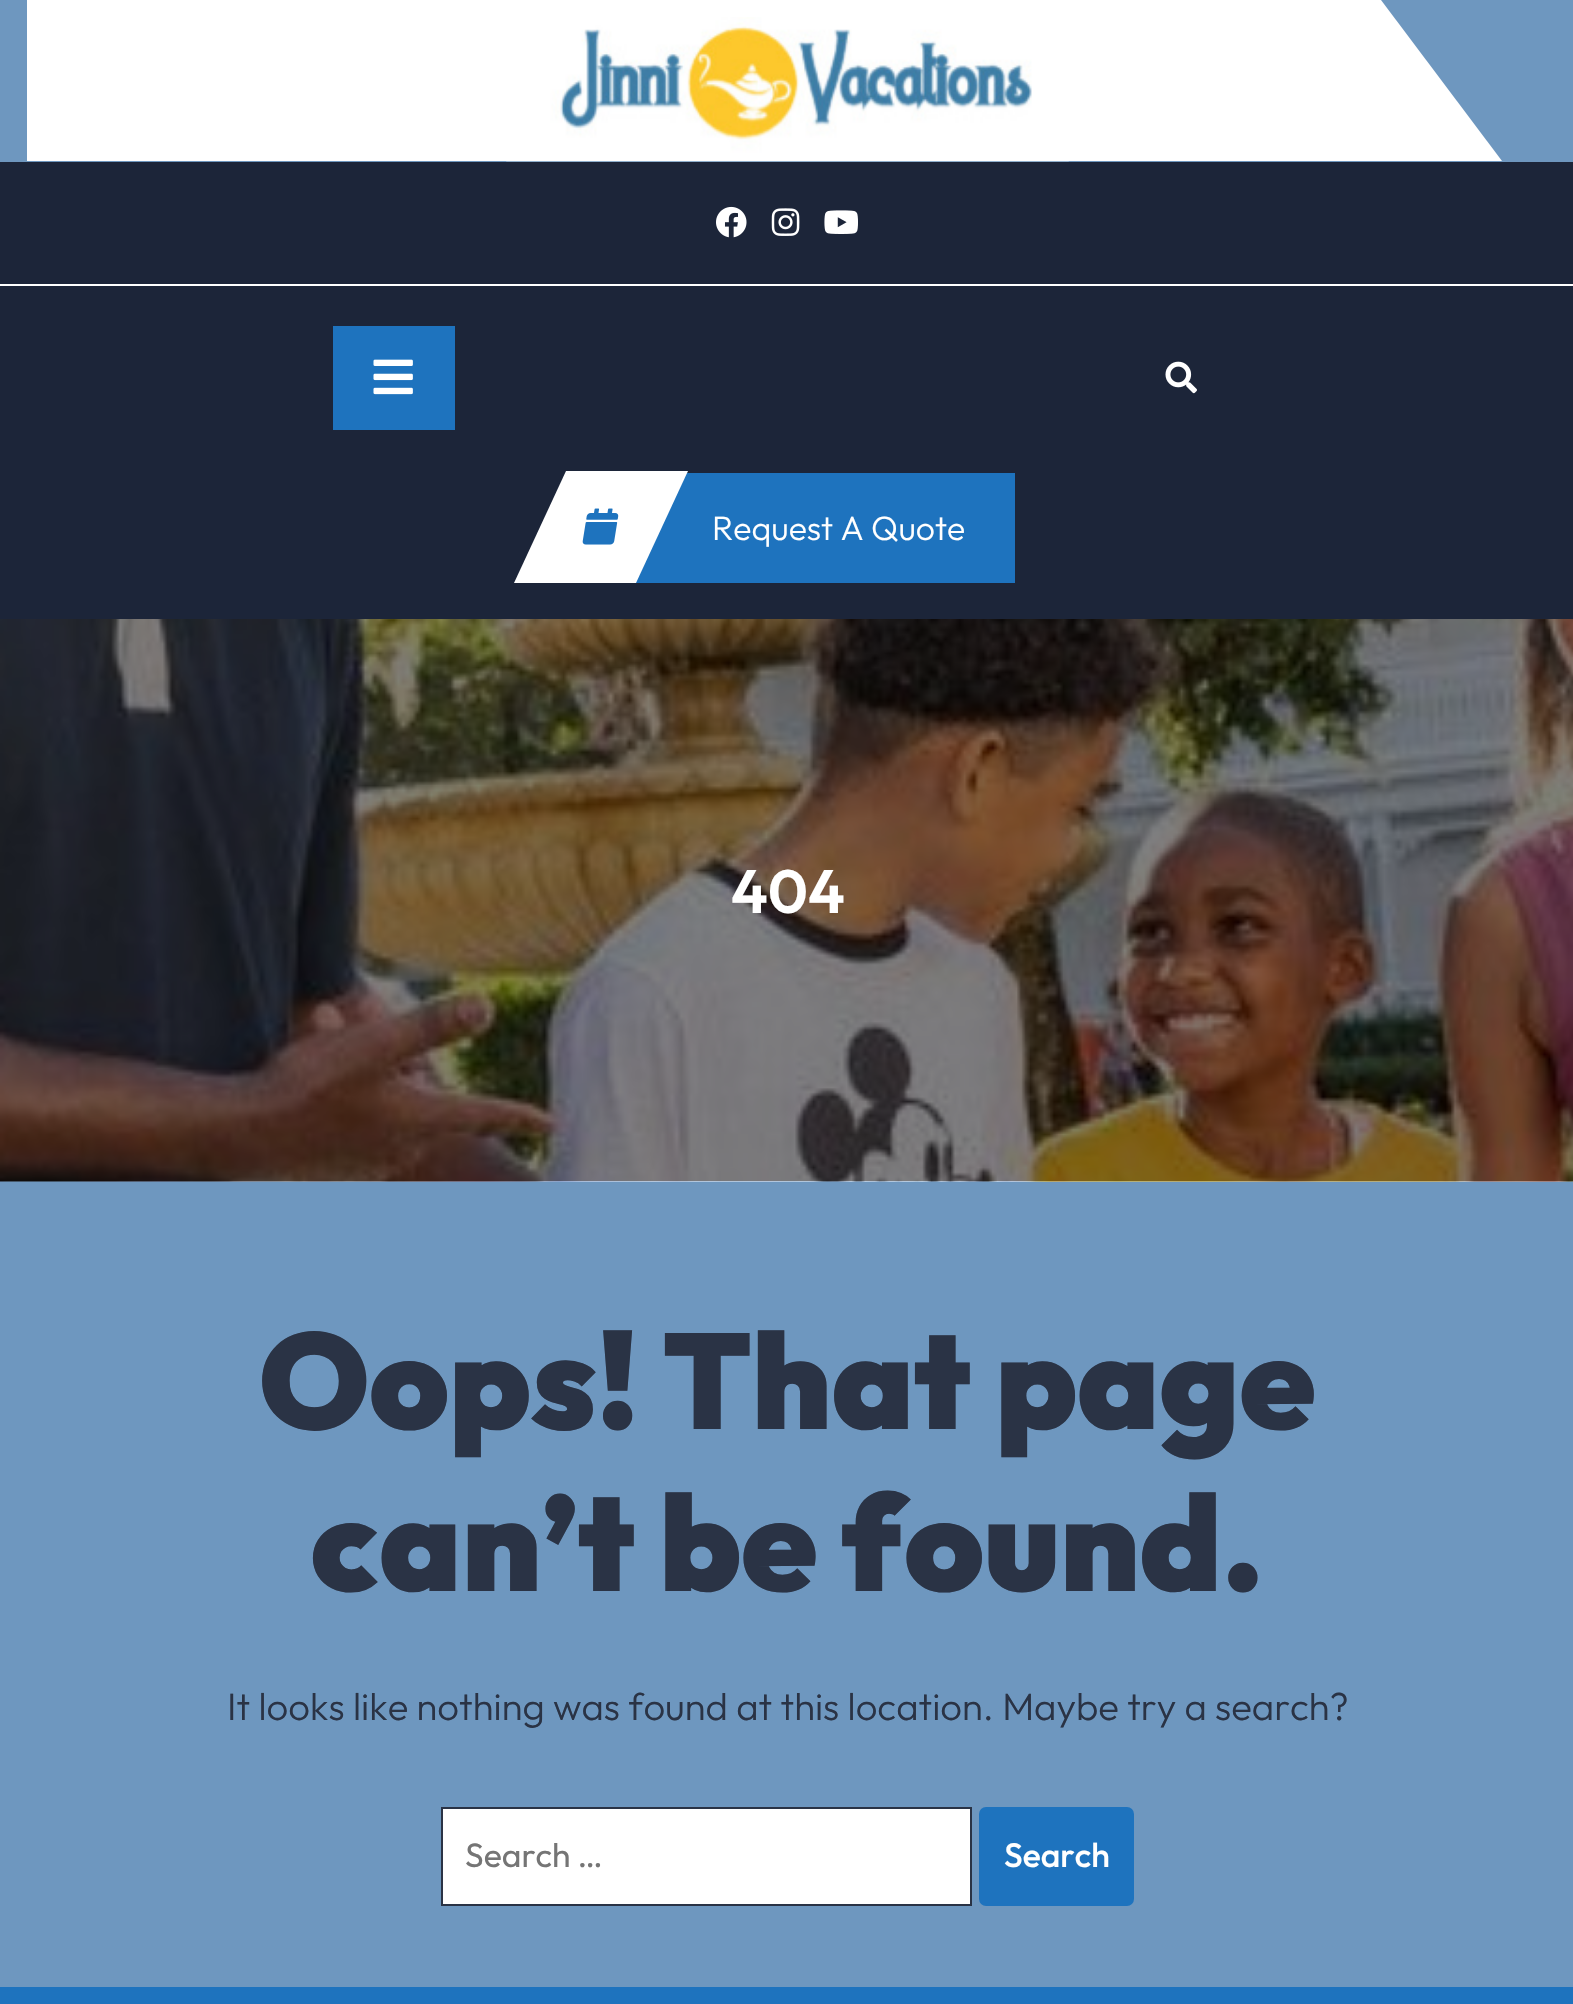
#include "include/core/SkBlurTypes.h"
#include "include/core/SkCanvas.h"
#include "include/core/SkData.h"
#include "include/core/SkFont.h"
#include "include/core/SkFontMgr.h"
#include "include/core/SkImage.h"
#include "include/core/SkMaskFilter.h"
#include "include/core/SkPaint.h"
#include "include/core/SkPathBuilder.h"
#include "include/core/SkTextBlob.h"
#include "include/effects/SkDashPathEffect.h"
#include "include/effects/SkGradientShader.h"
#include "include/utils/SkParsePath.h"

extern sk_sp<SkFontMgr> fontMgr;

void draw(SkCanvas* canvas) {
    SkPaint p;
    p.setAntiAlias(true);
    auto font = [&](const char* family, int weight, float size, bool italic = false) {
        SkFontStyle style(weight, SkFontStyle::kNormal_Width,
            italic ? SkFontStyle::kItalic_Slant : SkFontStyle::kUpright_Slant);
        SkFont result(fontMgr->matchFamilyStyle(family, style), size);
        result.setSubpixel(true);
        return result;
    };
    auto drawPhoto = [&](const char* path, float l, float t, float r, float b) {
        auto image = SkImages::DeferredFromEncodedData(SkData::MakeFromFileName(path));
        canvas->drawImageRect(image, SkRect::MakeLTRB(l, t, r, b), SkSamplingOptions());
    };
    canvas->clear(0xFF6E97BF);
    p.setColor(0xFFFFFFFF);
    canvas->drawPath(SkPathBuilder().moveTo(27, 0).lineTo(27, 161).lineTo(1502, 161).lineTo(1381, 0).close().detach(), p);
    drawPhoto("media/1.png", 506, 17, 1069, 162);
    p.setColor(0xFF1C2539);
    canvas->drawRect(SkRect::MakeLTRB(0, 162, 1573, 284), p);
    p.setColor(0xFFFFFFFF);
    canvas->drawRect(SkRect::MakeLTRB(0, 284, 1573, 286), p);
    drawPhoto("media/2.png", 716, 206, 747, 238);
    drawPhoto("media/3.png", 771, 208, 800, 236);
    drawPhoto("media/4.png", 824, 210, 858, 234);
    p.setColor(0xFF1C2539);
    canvas->drawRect(SkRect::MakeLTRB(0, 286, 1573, 619), p);
    p.setColor(0xFF1E73BE);
    canvas->drawRect(SkRect::MakeLTRB(333, 326, 455, 430), p);
    drawPhoto("media/5.png", 373, 359, 413, 395);
    drawPhoto("media/6.png", 1165, 361, 1197, 394);
    canvas->drawRect(SkRect::MakeLTRB(636, 473, 1015, 583), p);
    p.setColor(0xFFFFFFFF);
    canvas->drawPath(SkPathBuilder().moveTo(566, 471).lineTo(688, 471).lineTo(636, 583).lineTo(514, 583).close().detach(), p);
    drawPhoto("media/7.png", 582, 508, 619, 545);
    auto font1 = font("Outfit", 300, 33.75f);
    canvas->drawString("Request A Quote", 712, 540, font1, p);
    p.setColor(0xFF000000);
    canvas->drawRect(SkRect::MakeLTRB(0, 619, 1573, 1181), p);
    drawPhoto("media/8.png", 0, 619, 1573, 1182);
    auto font2 = font("Outfit", 600, 61);
    p.setColor(0xFFFFFFFF);
    canvas->drawString("404", 731, 913, font2, p);
    auto font3 = font("Outfit", 900, 135);
    p.setColor(0xFF2A3345);
    canvas->drawString("Oops! That page", 259, 1429, font3, p);
    canvas->drawString("can’t be found.", 311, 1591, font3, p);
    auto font4 = font("Outfit", 300, 38.25f);
    canvas->drawString("It looks like nothing was found at this location. Maybe try a search?", 227, 1720, font4, p);
    p.setColor(0xFFFFFFFF);
    canvas->drawRect(SkRect::MakeLTRB(442, 1808, 971, 1905), p);
    p.setStyle(SkPaint::kStroke_Style);
    p.setStrokeWidth(2);
    p.setColor(0xFF2A3345);
    canvas->drawRect(SkRect::MakeLTRB(442, 1808, 971, 1905), p);
    auto font5 = font("Outfit", 400, 33.75f);
    p.setStyle(SkPaint::kFill_Style);
    p.setColor(0xFF757575);
    canvas->drawString("Search …", 465, 1867, font5, p);
    p.setColor(0xFF1E73BE);
    canvas->drawRoundRect(SkRect::MakeLTRB(979, 1807, 1134, 1906), 7, 7, p);
    auto font6 = font("Outfit", 500, 33.75f);
    p.setColor(0xFFFFFFFF);
    canvas->drawString("Search", 1004, 1867, font6, p);
    p.setColor(0xFF1E73BE);
    canvas->drawRect(SkRect::MakeLTRB(0, 1987, 1573, 2004), p);
}
